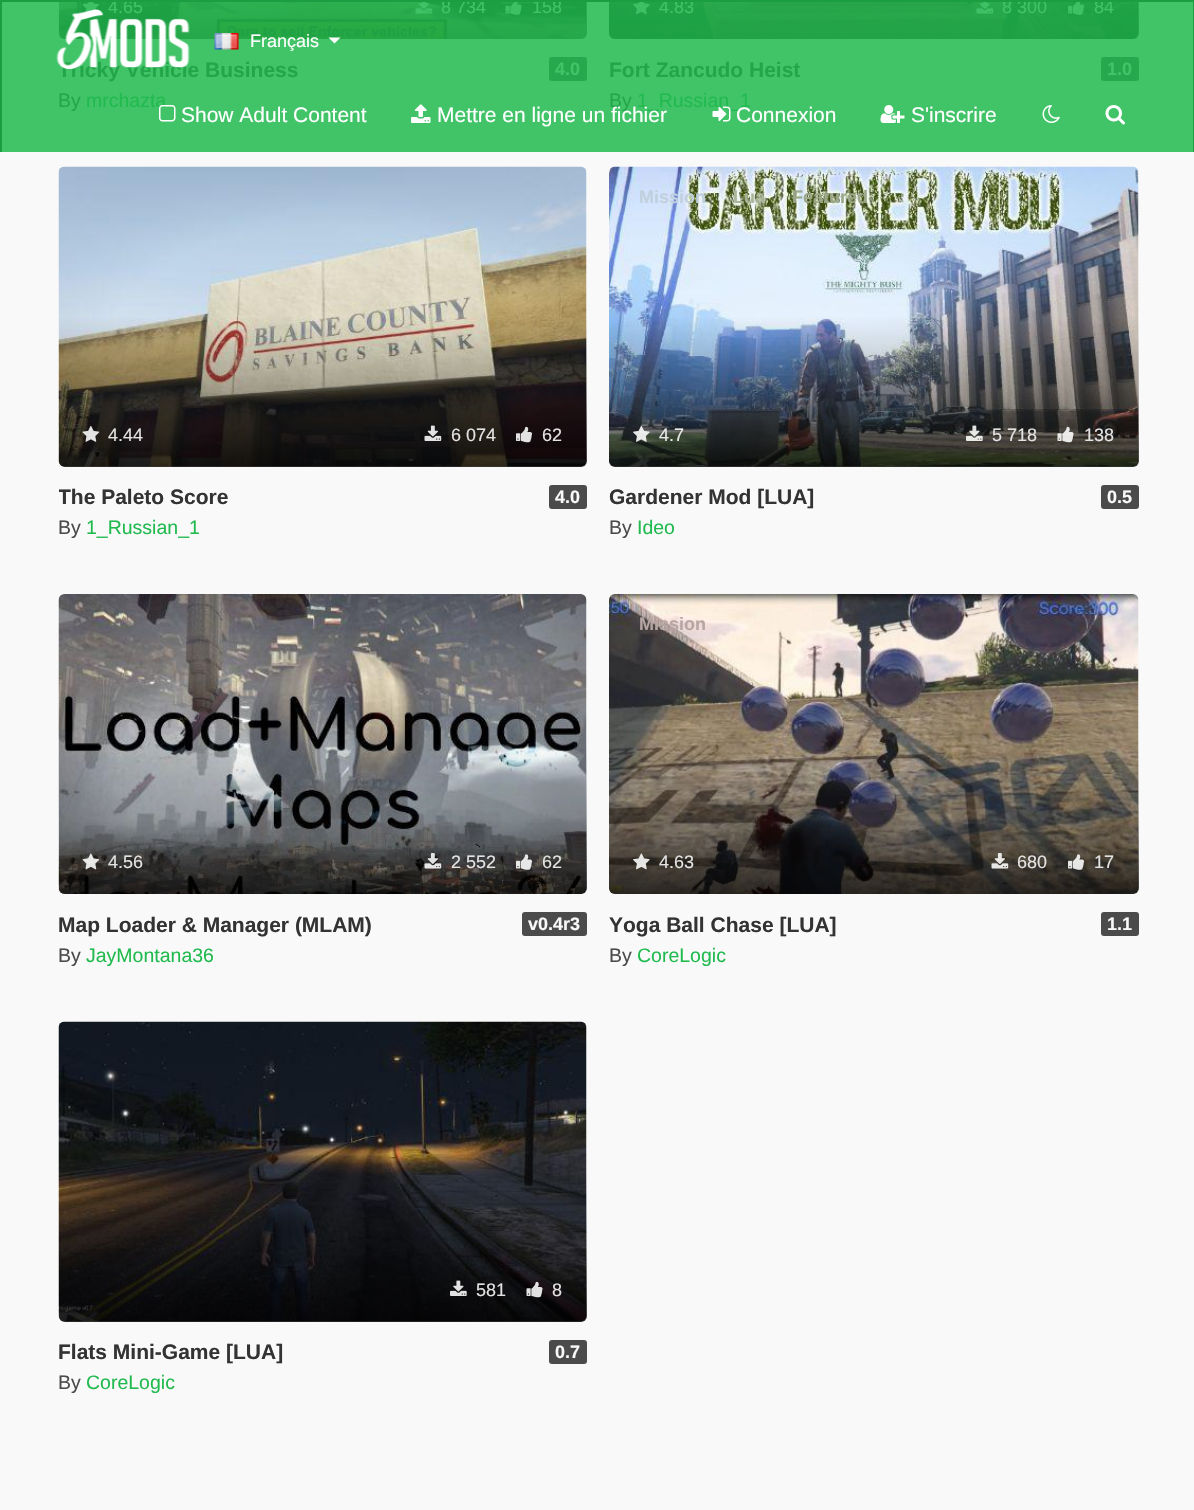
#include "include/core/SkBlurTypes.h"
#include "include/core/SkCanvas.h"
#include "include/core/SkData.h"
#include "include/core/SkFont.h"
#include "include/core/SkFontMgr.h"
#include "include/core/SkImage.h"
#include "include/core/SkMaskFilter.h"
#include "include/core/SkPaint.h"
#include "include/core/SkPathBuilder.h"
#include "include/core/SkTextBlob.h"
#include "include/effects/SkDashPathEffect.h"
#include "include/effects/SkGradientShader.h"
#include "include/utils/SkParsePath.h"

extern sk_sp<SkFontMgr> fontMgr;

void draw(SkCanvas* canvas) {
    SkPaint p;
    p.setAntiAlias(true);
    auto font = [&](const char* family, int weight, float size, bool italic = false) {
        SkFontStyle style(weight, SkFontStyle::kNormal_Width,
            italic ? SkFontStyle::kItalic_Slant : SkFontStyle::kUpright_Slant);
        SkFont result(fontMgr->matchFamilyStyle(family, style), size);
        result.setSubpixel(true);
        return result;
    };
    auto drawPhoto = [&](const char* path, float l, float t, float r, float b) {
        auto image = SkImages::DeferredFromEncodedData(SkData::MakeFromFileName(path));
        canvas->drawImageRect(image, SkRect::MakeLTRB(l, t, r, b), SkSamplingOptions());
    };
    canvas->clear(0xFFF9F9F9);
    p.setColor(0xFF41C368);
    canvas->drawRect(SkRect::MakeLTRB(2, 2, 1193, 152), p);
    drawPhoto("media/4.png", 58, 2, 587, 39);
    {
        const SkColor colors[] = {0x001B9E42, 0x401B9E42, 0xBF1B9E42};
        const float stops[] = {0.5f, 0.75f, 1};
        const SkPoint ends[] = {{323, -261}, {323, 39}};
        p.setShader(SkGradientShader::MakeLinear(ends, colors, stops, 3, SkTileMode::kClamp));
        p.setAlpha(255);
    }
    canvas->drawRoundRect(SkRect::MakeLTRB(59, -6, 587, 39), 6, 6, p);
    drawPhoto("media/1.png", 82, 2, 100, 13);
    auto font1 = font("Liberation Sans", 400, 18);
    p.setShader(nullptr);
    p.setColor(0xFF41C368);
    canvas->drawString("4.65", 108, 13, font1, p);
    drawPhoto("media/2.png", 415, 2, 433, 14);
    canvas->drawString("8 734", 441, 13, font1, p);
    drawPhoto("media/3.png", 505, 2, 522, 15);
    canvas->drawString("158", 532, 13, font1, p);
    canvas->save();
    canvas->clipRect(SkRect::MakeLTRB(59, 54, 534, 84));
    auto font2 = font("Liberation Sans", 700, 21);
    p.setColor(0xFF23A64A);
    canvas->drawString("Tricky Vehicle Business", 58, 77, font2, p);
    canvas->restore();
    p.setColor(0xFF26A94E);
    canvas->drawRoundRect(SkRect::MakeLTRB(549, 57, 587, 81), 3, 3, p);
    auto font3 = font("Liberation Sans", 700, 18);
    p.setColor(0xFF41C368);
    canvas->drawString("4.0", 555, 75, font3, p);
    auto font4 = font("Liberation Sans", 400, 19.5f);
    p.setColor(0xFF23A64A);
    canvas->drawString("By", 58, 107, font4, p);
    p.setColor(0xFF20BA4E);
    canvas->drawString("mrchazta", 86, 107, font4, p);
    drawPhoto("media/8.png", 609, 2, 1139, 39);
    {
        const SkColor colors[] = {0x001B9E42, 0x401B9E42, 0xBF1B9E42};
        const float stops[] = {0.5f, 0.75f, 1};
        const SkPoint ends[] = {{874, -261}, {874, 39}};
        p.setShader(SkGradientShader::MakeLinear(ends, colors, stops, 3, SkTileMode::kClamp));
        p.setAlpha(255);
    }
    canvas->drawRoundRect(SkRect::MakeLTRB(609, -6, 1139, 39), 6, 6, p);
    drawPhoto("media/5.png", 633, 2, 650, 15);
    p.setShader(nullptr);
    p.setColor(0xFF41C368);
    canvas->drawString("4.83", 659, 13, font1, p);
    drawPhoto("media/6.png", 976, 2, 994, 14);
    canvas->drawString("8 300", 1002, 13, font1, p);
    drawPhoto("media/7.png", 1068, 2, 1085, 15);
    canvas->drawString("84", 1094, 13, font1, p);
    p.setColor(0xFF23A64A);
    canvas->drawString("Fort Zancudo Heist", 609, 77, font2, p);
    p.setColor(0xFF26A94E);
    canvas->drawRoundRect(SkRect::MakeLTRB(1101, 57, 1139, 81), 3, 3, p);
    p.setColor(0xFF41C368);
    canvas->drawString("1.0", 1107, 75, font3, p);
    p.setColor(0xFF23A64A);
    canvas->drawString("By", 609, 107, font4, p);
    p.setColor(0xFF20BA4E);
    canvas->drawString("1_Russian_1", 637, 107, font4, p);
    drawPhoto("media/9.png", 58, 166, 587, 467);
    {
        const SkColor colors[] = {0x00000000, 0x40000000, 0xBF000000};
        const float stops[] = {0.5f, 0.75f, 1};
        const SkPoint ends[] = {{323, 166}, {323, 467}};
        p.setShader(SkGradientShader::MakeLinear(ends, colors, stops, 3, SkTileMode::kClamp));
        p.setAlpha(255);
    }
    canvas->drawRoundRect(SkRect::MakeLTRB(59, 167, 587, 467), 6, 6, p);
    drawPhoto("media/10.png", 82, 426, 100, 442);
    p.setShader(nullptr);
    p.setColor(0xFFE4E3E3);
    canvas->drawString("4.44", 108, 441, font1, p);
    drawPhoto("media/11.png", 424, 425, 442, 441);
    canvas->drawString("6 074", 451, 441, font1, p);
    drawPhoto("media/12.png", 516, 426, 532, 443);
    canvas->drawString("62", 542, 441, font1, p);
    canvas->save();
    canvas->clipRect(SkRect::MakeLTRB(59, 482, 534, 512));
    p.setColor(0xFF333333);
    canvas->drawString("The Paleto Score", 58, 504, font2, p);
    canvas->restore();
    p.setColor(0xFF4B4B4B);
    canvas->drawRoundRect(SkRect::MakeLTRB(549, 485, 587, 509), 3, 3, p);
    p.setColor(0xFFF9F9F9);
    canvas->drawString("4.0", 555, 503, font3, p);
    p.setColor(0xFF4B4B4B);
    canvas->drawString("By", 58, 534, font4, p);
    p.setColor(0xFF20BA4E);
    canvas->drawString("1_Russian_1", 86, 534, font4, p);
    drawPhoto("media/13.png", 609, 166, 1139, 467);
    {
        const SkColor colors[] = {0x00000000, 0x40000000, 0xBF000000};
        const float stops[] = {0.5f, 0.75f, 1};
        const SkPoint ends[] = {{874, 166}, {874, 467}};
        p.setShader(SkGradientShader::MakeLinear(ends, colors, stops, 3, SkTileMode::kClamp));
        p.setAlpha(255);
    }
    canvas->drawRoundRect(SkRect::MakeLTRB(609, 167, 1139, 467), 6, 6, p);
    p.setShader(nullptr);
    p.setColor(0xFFC1D0DE);
    canvas->drawString("Mission", 639, 203, font3, p);
    p.setColor(0xFFAAB498);
    canvas->drawString("Lua", 733, 203, font3, p);
    p.setColor(0xFF9BA789);
    canvas->drawString("Featured", 792, 203, font3, p);
    drawPhoto("media/14.png", 633, 426, 650, 442);
    p.setColor(0xFFE8E9E8);
    canvas->drawString("4.7", 659, 441, font1, p);
    drawPhoto("media/15.png", 966, 425, 983, 441);
    p.setColor(0xFFE4E3E3);
    canvas->drawString("5 718", 992, 441, font1, p);
    drawPhoto("media/16.png", 1057, 426, 1074, 443);
    canvas->drawString("138", 1084, 441, font1, p);
    p.setColor(0xFF333333);
    canvas->drawString("Gardener Mod [LUA]", 609, 504, font2, p);
    p.setColor(0xFF4B4B4B);
    canvas->drawRoundRect(SkRect::MakeLTRB(1101, 485, 1139, 509), 3, 3, p);
    p.setColor(0xFFF9F9F9);
    canvas->drawString("0.5", 1107, 503, font3, p);
    p.setColor(0xFF4B4B4B);
    canvas->drawString("By", 609, 534, font4, p);
    p.setColor(0xFF20BA4E);
    canvas->drawString("Ideo", 637, 534, font4, p);
    drawPhoto("media/17.png", 58, 594, 587, 894);
    {
        const SkColor colors[] = {0x00000000, 0x40000000, 0xBF000000};
        const float stops[] = {0.5f, 0.75f, 1};
        const SkPoint ends[] = {{323, 594}, {323, 894}};
        p.setShader(SkGradientShader::MakeLinear(ends, colors, stops, 3, SkTileMode::kClamp));
        p.setAlpha(255);
    }
    canvas->drawRoundRect(SkRect::MakeLTRB(59, 594, 587, 894), 6, 6, p);
    drawPhoto("media/18.png", 82, 853, 100, 870);
    p.setShader(nullptr);
    p.setColor(0xFFE4E3E3);
    canvas->drawString("4.56", 108, 868, font1, p);
    drawPhoto("media/19.png", 424, 853, 442, 869);
    canvas->drawString("2 552", 451, 868, font1, p);
    drawPhoto("media/20.png", 516, 854, 533, 870);
    canvas->drawString("62", 542, 868, font1, p);
    p.setColor(0xFF333333);
    canvas->drawString("Map Loader & Manager (MLAM)", 58, 932, font2, p);
    p.setColor(0xFF4B4B4B);
    canvas->drawRoundRect(SkRect::MakeLTRB(522, 912, 587, 936), 3, 3, p);
    p.setColor(0xFFF9F9F9);
    canvas->drawString("v0.4r3", 528, 930, font3, p);
    p.setColor(0xFF4B4B4B);
    canvas->drawString("By", 58, 962, font4, p);
    p.setColor(0xFF20BA4E);
    canvas->drawString("JayMontana36", 86, 962, font4, p);
    drawPhoto("media/21.png", 609, 594, 1139, 894);
    {
        const SkColor colors[] = {0x00000000, 0x40000000, 0xBF000000};
        const float stops[] = {0.5f, 0.75f, 1};
        const SkPoint ends[] = {{874, 594}, {874, 894}};
        p.setShader(SkGradientShader::MakeLinear(ends, colors, stops, 3, SkTileMode::kClamp));
        p.setAlpha(255);
    }
    canvas->drawRoundRect(SkRect::MakeLTRB(609, 594, 1139, 894), 6, 6, p);
    p.setShader(nullptr);
    p.setColor(0xFFB6A6A3);
    canvas->drawString("Mission", 639, 630, font3, p);
    drawPhoto("media/22.png", 633, 853, 650, 870);
    p.setColor(0xFFE4E3E3);
    canvas->drawString("4.63", 659, 868, font1, p);
    drawPhoto("media/23.png", 991, 853, 1009, 869);
    canvas->drawString("680", 1017, 868, font1, p);
    drawPhoto("media/24.png", 1068, 854, 1085, 870);
    canvas->drawString("17", 1094, 868, font1, p);
    p.setColor(0xFF333333);
    canvas->drawString("Yoga Ball Chase [LUA]", 609, 932, font2, p);
    p.setColor(0xFF4B4B4B);
    canvas->drawRoundRect(SkRect::MakeLTRB(1101, 912, 1139, 936), 3, 3, p);
    p.setColor(0xFFF9F9F9);
    canvas->drawString("1.1", 1107, 930, font3, p);
    p.setColor(0xFF4B4B4B);
    canvas->drawString("By", 609, 962, font4, p);
    p.setColor(0xFF20BA4E);
    canvas->drawString("CoreLogic", 637, 962, font4, p);
    drawPhoto("media/25.png", 58, 1021, 587, 1322);
    {
        const SkColor colors[] = {0x00000000, 0x40000000, 0xBF000000};
        const float stops[] = {0.5f, 0.75f, 1};
        const SkPoint ends[] = {{323, 1022}, {323, 1322}};
        p.setShader(SkGradientShader::MakeLinear(ends, colors, stops, 3, SkTileMode::kClamp));
        p.setAlpha(255);
    }
    canvas->drawRoundRect(SkRect::MakeLTRB(59, 1022, 587, 1322), 6, 6, p);
    drawPhoto("media/26.png", 450, 1280, 467, 1296);
    p.setShader(nullptr);
    p.setColor(0xFFE4E3E3);
    canvas->drawString("581", 476, 1296, font1, p);
    drawPhoto("media/27.png", 526, 1281, 543, 1298);
    canvas->drawString("8", 552, 1296, font1, p);
    p.setColor(0xFF333333);
    canvas->drawString("Flats Mini-Game [LUA]", 58, 1359, font2, p);
    p.setColor(0xFF4B4B4B);
    canvas->drawRoundRect(SkRect::MakeLTRB(549, 1340, 587, 1364), 3, 3, p);
    p.setColor(0xFFF9F9F9);
    canvas->drawString("0.7", 555, 1358, font3, p);
    p.setColor(0xFF4B4B4B);
    canvas->drawString("By", 58, 1389, font4, p);
    p.setColor(0xFF20BA4E);
    canvas->drawString("CoreLogic", 86, 1389, font4, p);
    {
        const struct { float l, t, r, b; SkColor color; } items[] = {
            {0, 0, 1194, 2, 0xFF1B9E42},
            {1193, 0, 1194, 152, 0xFF1B9E42},
            {0, 0, 2, 152, 0xFF1B9E42},
        };
        for (auto [l, t, r, b, color] : items) {
            p.setColor(color);
            canvas->drawRect(SkRect::MakeLTRB(l, t, r, b), p);
        }
    }
    drawPhoto("media/28.png", 56, 9, 190, 69);
    drawPhoto("media/29.png", 214, 33, 239, 50);
    p.setColor(0xFFFFFFFF);
    canvas->drawString("Français", 250, 47, font1, p);
    canvas->drawPath(SkPathBuilder().moveTo(328.5f, 37.5f).lineTo(340.5f, 37.5f).lineTo(334.5f, 43.5f).close().detach(), p);
    drawPhoto("media/30.png", 159, 105, 176, 122);
    auto font5 = font("Liberation Sans", 400, 21);
    canvas->drawString("Show Adult Content", 181, 122, font5, p);
    drawPhoto("media/31.png", 411, 104, 431, 123);
    canvas->drawString("Mettre en ligne un fichier", 437, 122, font5, p);
    drawPhoto("media/32.png", 712, 106, 731, 122);
    canvas->drawString("Connexion", 736, 122, font5, p);
    drawPhoto("media/33.png", 880, 105, 905, 123);
    canvas->drawString("S'inscrire", 911, 122, font5, p);
    drawPhoto("media/34.png", 1042, 105, 1060, 123);
    drawPhoto("media/35.png", 1105, 105, 1125, 125);
}
